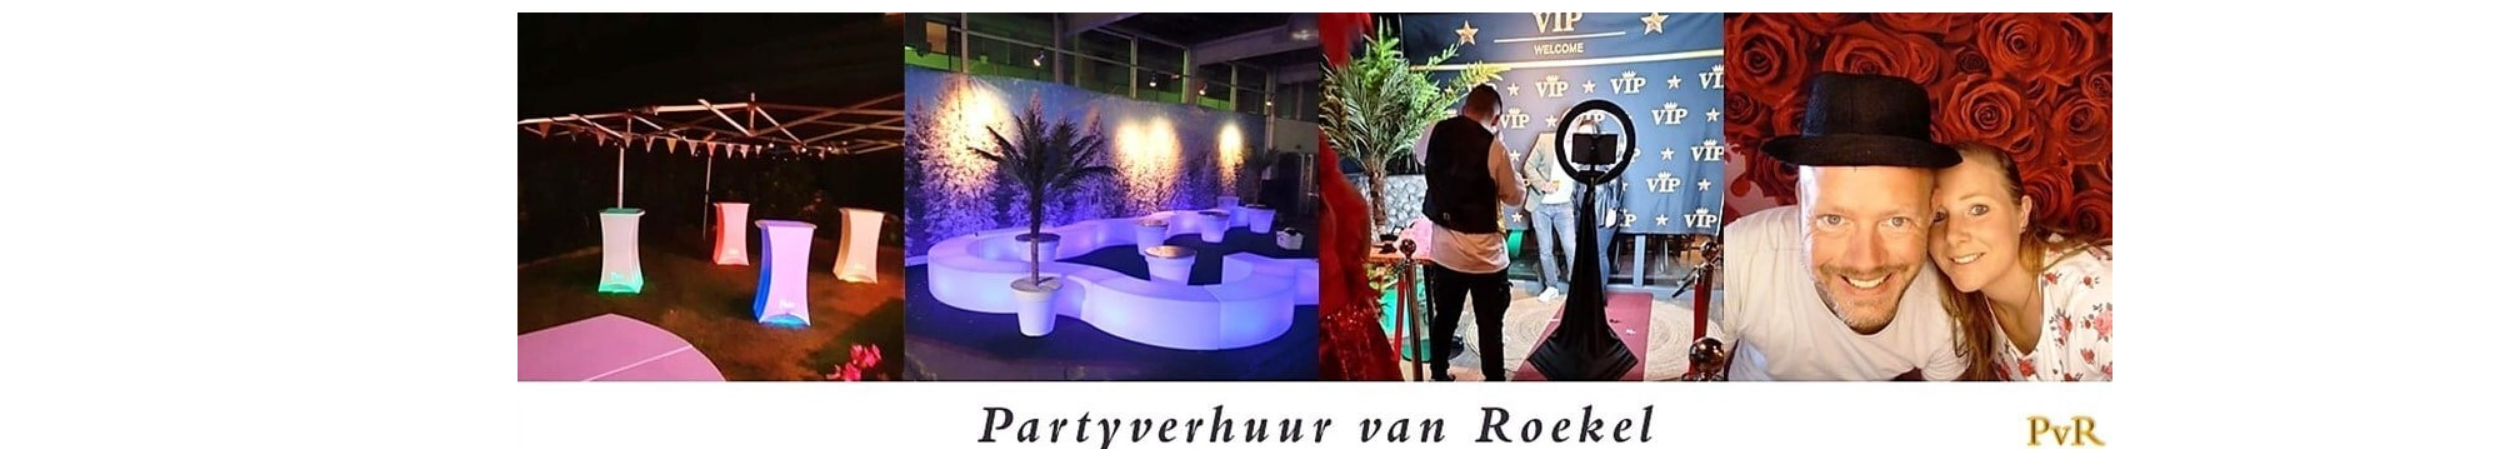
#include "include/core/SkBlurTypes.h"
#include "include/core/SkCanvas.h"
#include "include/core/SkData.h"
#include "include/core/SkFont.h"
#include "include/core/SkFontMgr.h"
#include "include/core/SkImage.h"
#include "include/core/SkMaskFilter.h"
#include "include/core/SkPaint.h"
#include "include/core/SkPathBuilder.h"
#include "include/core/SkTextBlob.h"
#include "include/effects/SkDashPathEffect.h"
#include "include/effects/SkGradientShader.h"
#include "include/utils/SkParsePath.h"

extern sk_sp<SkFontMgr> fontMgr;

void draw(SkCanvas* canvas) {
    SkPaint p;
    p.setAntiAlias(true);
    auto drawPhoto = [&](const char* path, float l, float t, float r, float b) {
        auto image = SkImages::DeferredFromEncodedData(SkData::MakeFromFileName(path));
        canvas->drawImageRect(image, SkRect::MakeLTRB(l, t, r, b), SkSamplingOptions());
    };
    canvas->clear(0xFFFFFFFF);
    drawPhoto("media/1.png", 517, 12, 2113, 449);
}
